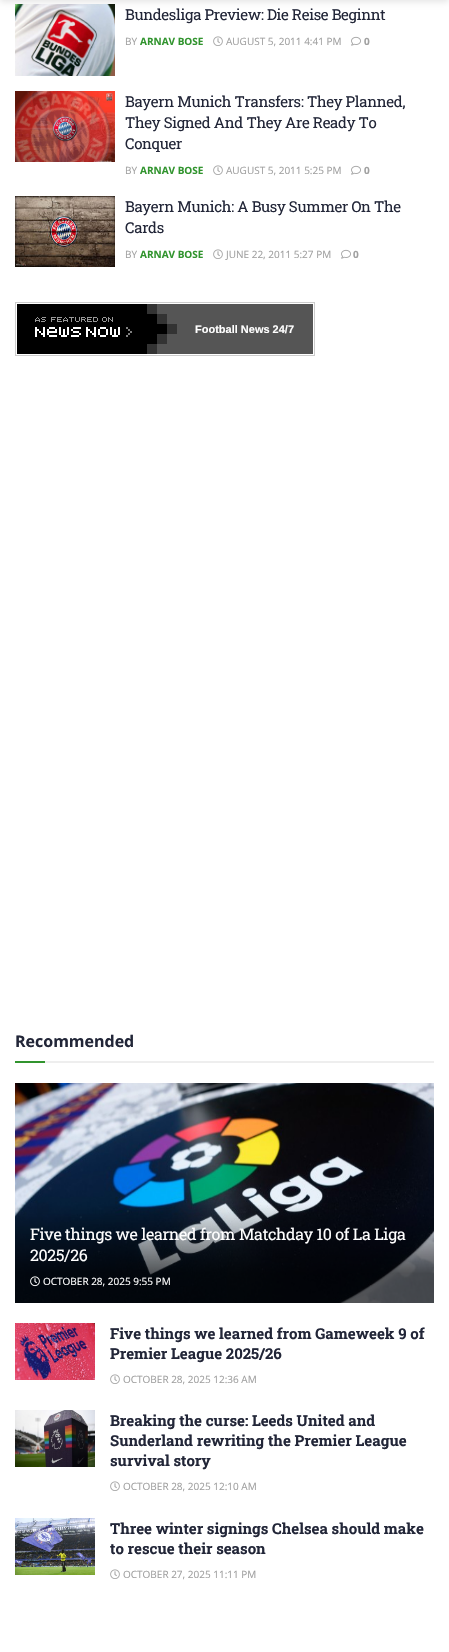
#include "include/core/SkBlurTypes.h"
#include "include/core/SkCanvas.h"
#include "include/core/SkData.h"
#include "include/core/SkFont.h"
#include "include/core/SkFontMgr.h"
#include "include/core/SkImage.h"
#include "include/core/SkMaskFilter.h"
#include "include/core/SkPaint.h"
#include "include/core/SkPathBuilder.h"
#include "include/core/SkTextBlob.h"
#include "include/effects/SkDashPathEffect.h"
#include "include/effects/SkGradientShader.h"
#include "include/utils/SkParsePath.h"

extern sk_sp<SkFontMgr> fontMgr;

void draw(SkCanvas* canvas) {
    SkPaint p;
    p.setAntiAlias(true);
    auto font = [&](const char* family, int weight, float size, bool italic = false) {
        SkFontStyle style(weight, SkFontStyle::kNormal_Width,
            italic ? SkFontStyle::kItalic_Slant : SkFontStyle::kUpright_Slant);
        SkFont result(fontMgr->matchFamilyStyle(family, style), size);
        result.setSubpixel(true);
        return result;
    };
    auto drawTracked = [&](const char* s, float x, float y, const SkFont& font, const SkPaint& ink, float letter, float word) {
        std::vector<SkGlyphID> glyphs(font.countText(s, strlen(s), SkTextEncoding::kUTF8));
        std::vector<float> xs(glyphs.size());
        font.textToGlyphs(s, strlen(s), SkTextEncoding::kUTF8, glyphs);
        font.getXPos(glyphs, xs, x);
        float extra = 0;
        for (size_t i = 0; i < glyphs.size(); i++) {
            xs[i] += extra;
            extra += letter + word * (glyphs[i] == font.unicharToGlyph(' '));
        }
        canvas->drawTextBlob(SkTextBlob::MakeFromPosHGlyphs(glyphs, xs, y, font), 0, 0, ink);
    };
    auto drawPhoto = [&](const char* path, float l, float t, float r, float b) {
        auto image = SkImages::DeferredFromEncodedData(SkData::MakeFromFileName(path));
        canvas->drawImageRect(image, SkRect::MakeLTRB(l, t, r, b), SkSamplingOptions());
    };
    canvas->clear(0xFFFFFFFF);
    drawPhoto("media/1.png", 15, 4, 115, 76);
    p.setColor(0x1A000000);
    p.setMaskFilter(SkMaskFilter::MakeBlur(kNormal_SkBlurStyle, 3));
    canvas->drawRect(SkRect::MakeLTRB(0, -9, 449, 2), p);
    p.setMaskFilter(nullptr);
    auto font1 = font("Roboto Slab", 400, 15);
    p.setColor(0xFF222638);
    drawTracked("Bundesliga Preview: Die Reise Beginnt", 125, 20, font1, p, -0.3f, 0);
    auto font2 = font("Open Sans", 400, 10);
    p.setColor(0xFFA0A0A0);
    canvas->drawString("BY", 125, 45, font2, p);
    auto font3 = font("Open Sans", 700, 10);
    p.setColor(0xFF31942E);
    canvas->drawString("ARNAV BOSE", 140, 45, font3, p);
    drawPhoto("media/2.png", 213, 36, 223, 46);
    p.setColor(0xFFA0A0A0);
    canvas->drawString("AUGUST 5, 2011 4:41 PM", 226, 45, font2, p);
    drawPhoto("media/3.png", 351, 36, 361, 46);
    canvas->drawString("0", 364, 45, font3, p);
    drawPhoto("media/4.png", 15, 91, 115, 162);
    p.setColor(0xFF222638);
    {
        const struct { const char* s; float x, y; } items[] = {
            {"Bayern Munich Transfers: They Planned,", 125, 107},
            {"They Signed And They Are Ready To", 125, 128},
            {"Conquer", 125, 149},
        };
        for (auto [s, x, y] : items) {
            drawTracked(s, x, y, font1, p, -0.3f, 0);
        }
    }
    p.setColor(0xFFA0A0A0);
    canvas->drawString("BY", 125, 174, font2, p);
    p.setColor(0xFF31942E);
    canvas->drawString("ARNAV BOSE", 140, 174, font3, p);
    drawPhoto("media/2.png", 213, 165, 223, 175);
    p.setColor(0xFFA0A0A0);
    canvas->drawString("AUGUST 5, 2011 5:25 PM", 226, 174, font2, p);
    drawPhoto("media/3.png", 351, 165, 361, 175);
    canvas->drawString("0", 364, 174, font3, p);
    drawPhoto("media/5.png", 15, 196, 115, 267);
    p.setColor(0xFF222638);
    drawTracked("Bayern Munich: A Busy Summer On The", 125, 212, font1, p, -0.3f, 0);
    drawTracked("Cards", 125, 233, font1, p, -0.3f, 0);
    p.setColor(0xFFA0A0A0);
    canvas->drawString("BY", 125, 258, font2, p);
    p.setColor(0xFF31942E);
    canvas->drawString("ARNAV BOSE", 140, 258, font3, p);
    drawPhoto("media/2.png", 213, 249, 223, 259);
    p.setColor(0xFFA0A0A0);
    canvas->drawString("JUNE 22, 2011 5:27 PM", 226, 258, font2, p);
    drawPhoto("media/3.png", 341, 249, 351, 259);
    canvas->drawString("0", 353, 258, font3, p);
    p.setColor(0xFF555555);
    canvas->drawRect(SkRect::MakeLTRB(177, 304, 313, 354), p);
    p.setStyle(SkPaint::kStroke_Style);
    p.setStrokeWidth(1);
    p.setColor(0xFFCCCCCC);
    canvas->drawRect(SkRect::MakeLTRB(15.5f, 302.5f, 314.5f, 355.5f), p);
    drawPhoto("media/6.png", 17, 304, 177, 354);
    auto font4 = font("Liberation Sans", 700, 11);
    p.setStyle(SkPaint::kFill_Style);
    p.setColor(0xFFFFFFFF);
    canvas->drawString("Football News 24/7", 195, 333, font4, p);
    p.setColor(0xFFEEEEEE);
    canvas->drawRect(SkRect::MakeLTRB(45, 1061, 434, 1063), p);
    auto font5 = font("Open Sans", 700, 16);
    p.setColor(0xFF222638);
    canvas->drawString("Recommended", 15, 1047, font5, p);
    p.setColor(0xFF31942E);
    canvas->drawRect(SkRect::MakeLTRB(15, 1061, 45, 1063), p);
    drawPhoto("media/7.png", 15, 1083, 434, 1303);
    auto font6 = font("Roboto Slab", 400, 16);
    p.setColor(0xFFFFFFFF);
    drawTracked("Five things we learned from Matchday 10 of La Liga", 30, 1240, font6, p, -0.3f, 0);
    drawTracked("2025/26", 30, 1261, font6, p, -0.3f, 0);
    drawPhoto("media/8.png", 30, 1276, 40, 1287);
    canvas->drawString("OCTOBER 28, 2025 9:55 PM", 43, 1285, font2, p);
    drawPhoto("media/9.png", 15, 1323, 95, 1380);
    auto font7 = font("Roboto Slab", 700, 15);
    p.setColor(0xFF222638);
    canvas->drawString("Five things we learned from Gameweek 9 of", 110, 1339, font7, p);
    canvas->drawString("Premier League 2025/26", 110, 1359, font7, p);
    drawPhoto("media/2.png", 110, 1374, 120, 1384);
    p.setColor(0xFFA0A0A0);
    canvas->drawString("OCTOBER 28, 2025 12:36 AM", 123, 1383, font2, p);
    drawPhoto("media/10.png", 15, 1410, 95, 1467);
    p.setColor(0xFF222638);
    {
        const struct { const char* s; float x, y; } items[] = {
            {"Breaking the curse: Leeds United and", 110, 1426},
            {"Sunderland rewriting the Premier League", 110, 1446},
            {"survival story", 110, 1466},
        };
        for (auto [s, x, y] : items) {
            canvas->drawString(s, x, y, font7, p);
        }
    }
    drawPhoto("media/2.png", 110, 1481, 120, 1491);
    p.setColor(0xFFA0A0A0);
    canvas->drawString("OCTOBER 28, 2025 12:10 AM", 123, 1490, font2, p);
    drawPhoto("media/11.png", 15, 1518, 95, 1575);
    p.setColor(0xFF222638);
    canvas->drawString("Three winter signings Chelsea should make", 110, 1534, font7, p);
    canvas->drawString("to rescue their season", 110, 1554, font7, p);
    drawPhoto("media/2.png", 110, 1569, 120, 1579);
    p.setColor(0xFFA0A0A0);
    canvas->drawString("OCTOBER 27, 2025 11:11 PM", 123, 1578, font2, p);
}
